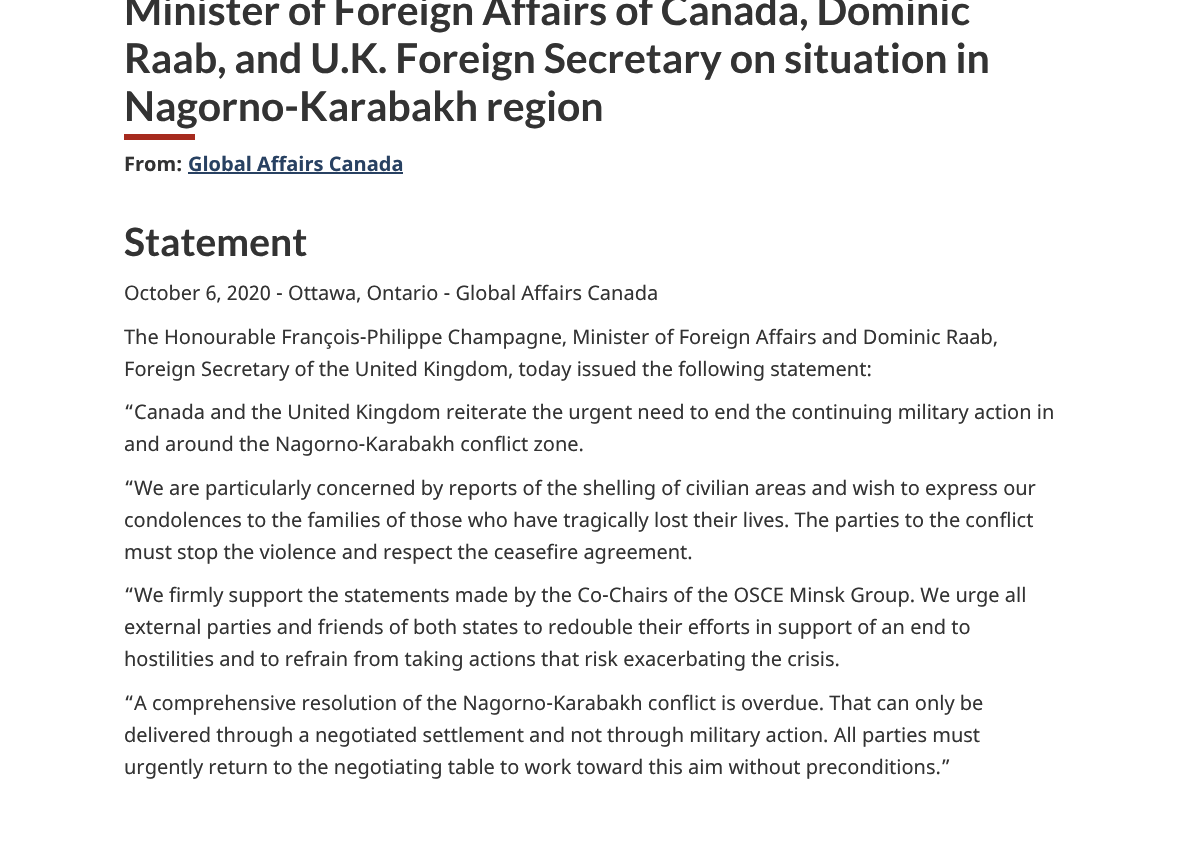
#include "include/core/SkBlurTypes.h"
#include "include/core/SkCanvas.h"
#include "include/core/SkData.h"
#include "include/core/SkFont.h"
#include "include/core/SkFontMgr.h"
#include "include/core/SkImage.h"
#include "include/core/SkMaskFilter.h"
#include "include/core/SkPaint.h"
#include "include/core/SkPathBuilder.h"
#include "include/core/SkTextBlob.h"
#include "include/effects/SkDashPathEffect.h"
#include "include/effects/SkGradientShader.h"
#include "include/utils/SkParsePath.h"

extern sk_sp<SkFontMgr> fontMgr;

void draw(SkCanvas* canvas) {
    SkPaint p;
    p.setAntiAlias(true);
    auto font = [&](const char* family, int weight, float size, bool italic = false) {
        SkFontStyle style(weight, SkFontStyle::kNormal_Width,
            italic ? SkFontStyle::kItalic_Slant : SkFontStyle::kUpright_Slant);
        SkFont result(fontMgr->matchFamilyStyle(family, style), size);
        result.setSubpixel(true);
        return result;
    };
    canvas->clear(0xFFFFFFFF);
    p.setColor(0xFFA62A1E);
    canvas->drawRect(SkRect::MakeLTRB(124, 134, 195, 140), p);
    auto font1 = font("Lato", 700, 41);
    p.setColor(0xFF333333);
    {
        const struct { const char* s; float x, y; } items[] = {
            {"Minister of Foreign Affairs of Canada, Dominic", 124, 25},
            {"Raab, and U.K. Foreign Secretary on situation in", 124, 73},
            {"Nagorno-Karabakh region", 124, 121},
        };
        for (auto [s, x, y] : items) {
            canvas->drawString(s, x, y, font1, p);
        }
    }
    auto font2 = font("Noto Sans", 700, 20);
    canvas->drawString("From:", 124, 171, font2, p);
    p.setColor(0xFF284162);
    canvas->drawString("Global Affairs Canada", 188, 171, font2, p);
    canvas->drawRect(SkRect::MakeLTRB(188, 172, 403, 174), p);
    auto font3 = font("Lato", 700, 39);
    p.setColor(0xFF333333);
    canvas->drawString("Statement", 124, 256, font3, p);
    auto font4 = font("Noto Sans", 400, 20);
    {
        const struct { const char* s; float x, y; } items[] = {
            {"October 6, 2020 - Ottawa, Ontario - Global Affairs Canada", 124, 300},
            {"The Honourable François-Philippe Champagne, Minister of Foreign Affairs and Dominic Raab,", 124, 344},
            {"Foreign Secretary of the United Kingdom, today issued the following statement:", 124, 376},
            {"“Canada and the United Kingdom reiterate the urgent need to end the continuing military action in", 124, 419},
            {"and around the Nagorno-Karabakh conflict zone.", 124, 451},
            {"“We are particularly concerned by reports of the shelling of civilian areas and wish to express our", 124, 495},
            {"condolences to the families of those who have tragically lost their lives. The parties to the conflict", 124, 527},
            {"must stop the violence and respect the ceasefire agreement.", 124, 559},
            {"“We firmly support the statements made by the Co-Chairs of the OSCE Minsk Group. We urge all", 124, 602},
            {"external parties and friends of both states to redouble their efforts in support of an end to", 124, 634},
            {"hostilities and to refrain from taking actions that risk exacerbating the crisis.", 124, 666},
            {"“A comprehensive resolution of the Nagorno-Karabakh conflict is overdue. That can only be", 124, 710},
            {"delivered through a negotiated settlement and not through military action. All parties must", 124, 742},
            {"urgently return to the negotiating table to work toward this aim without preconditions.”", 124, 774},
        };
        for (auto [s, x, y] : items) {
            canvas->drawString(s, x, y, font4, p);
        }
    }
}
